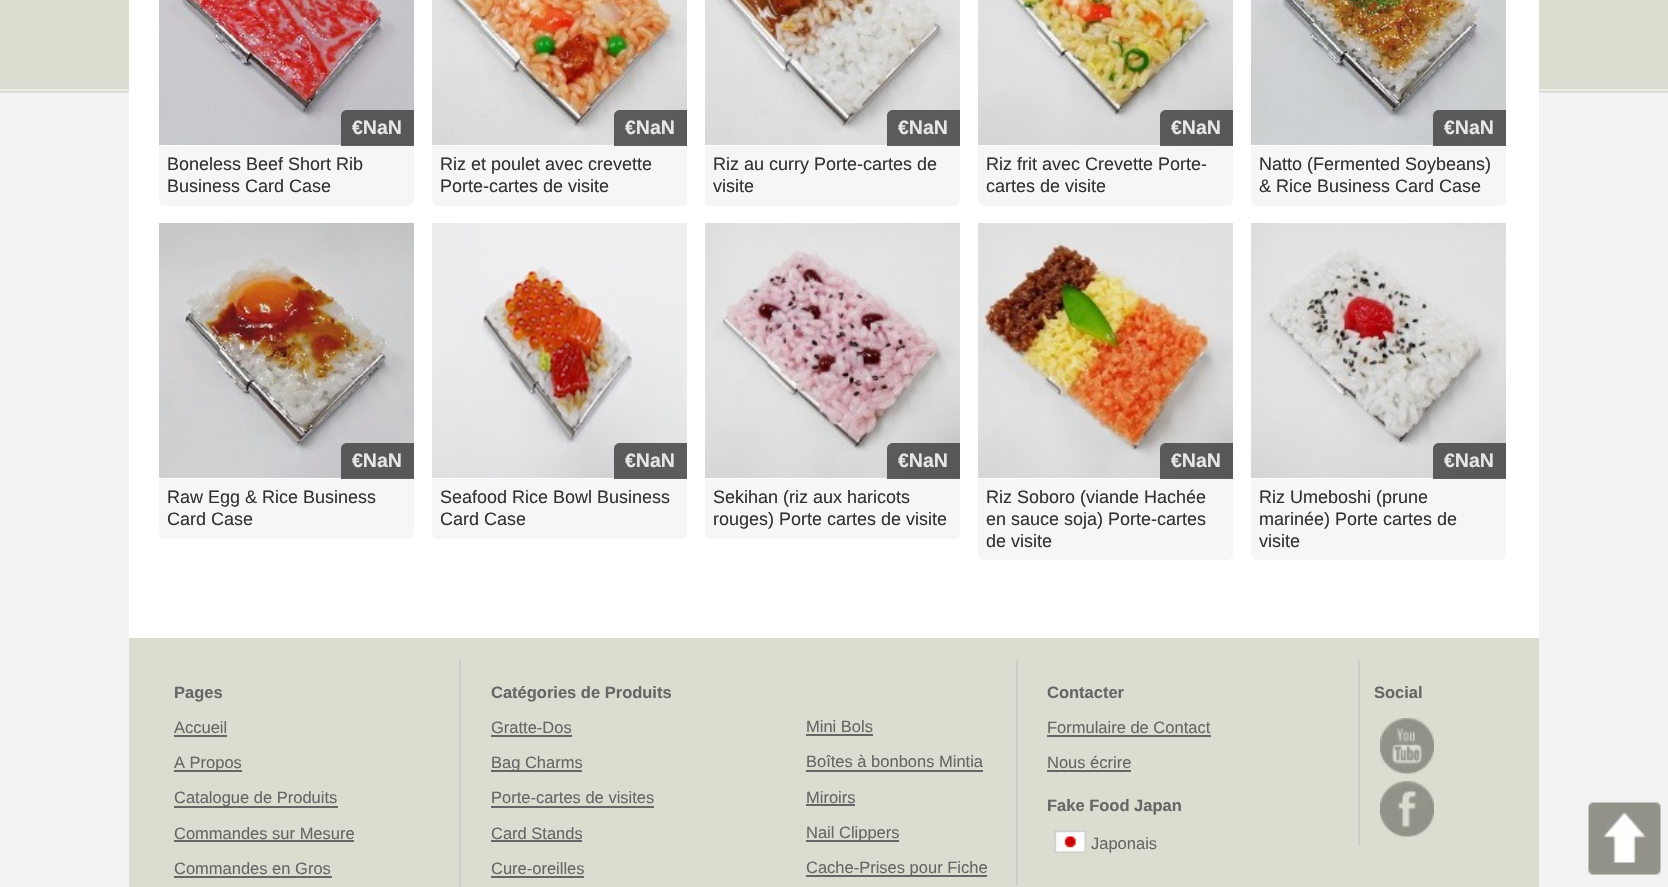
#include "include/core/SkBlurTypes.h"
#include "include/core/SkCanvas.h"
#include "include/core/SkData.h"
#include "include/core/SkFont.h"
#include "include/core/SkFontMgr.h"
#include "include/core/SkImage.h"
#include "include/core/SkMaskFilter.h"
#include "include/core/SkPaint.h"
#include "include/core/SkPathBuilder.h"
#include "include/core/SkTextBlob.h"
#include "include/effects/SkDashPathEffect.h"
#include "include/effects/SkGradientShader.h"
#include "include/utils/SkParsePath.h"

extern sk_sp<SkFontMgr> fontMgr;

void draw(SkCanvas* canvas) {
    SkPaint p;
    p.setAntiAlias(true);
    auto font = [&](const char* family, int weight, float size, bool italic = false) {
        SkFontStyle style(weight, SkFontStyle::kNormal_Width,
            italic ? SkFontStyle::kItalic_Slant : SkFontStyle::kUpright_Slant);
        SkFont result(fontMgr->matchFamilyStyle(family, style), size);
        result.setSubpixel(true);
        return result;
    };
    auto drawPhoto = [&](const char* path, float l, float t, float r, float b) {
        auto image = SkImages::DeferredFromEncodedData(SkData::MakeFromFileName(path));
        canvas->drawImageRect(image, SkRect::MakeLTRB(l, t, r, b), SkSamplingOptions());
    };
    canvas->clear(0xFFF3F3F3);
    drawPhoto("media/1.png", 0, 0, 1668, 93);
    p.setColor(0xFFFFFFFF);
    canvas->drawRect(SkRect::MakeLTRB(129, 0, 1539, 638), p);
    drawPhoto("media/2.png", 159, 0, 414, 145);
    p.setColor(0xD9444444);
    canvas->drawPath(SkPathBuilder().moveTo(347, 110).lineTo(414, 110).lineTo(414, 146).lineTo(341, 146).lineTo(341, 116).cubicTo(341, 112.5f, 343.5f, 110, 347, 110).close().detach(), p);
    auto font1 = font("Liberation Sans", 700, 19.5f);
    p.setColor(0xFFE6E6E6);
    canvas->drawString("€NaN", 352, 134, font1, p);
    p.setColor(0xFFF6F6F6);
    canvas->drawPath(SkPathBuilder().moveTo(159, 146).lineTo(414, 146).lineTo(414, 200).cubicTo(414, 203.5f, 411.5f, 206, 408, 206).lineTo(165, 206).cubicTo(161.5f, 206, 159, 203.5f, 159, 200).close().detach(), p);
    auto font2 = font("Liberation Sans", 400, 18);
    p.setColor(0xFF333333);
    canvas->drawString("Boneless Beef Short Rib", 167, 170, font2, p);
    canvas->drawString("Business Card Case", 167, 192, font2, p);
    drawPhoto("media/3.png", 432, 0, 687, 145);
    p.setColor(0xD9444444);
    canvas->drawPath(SkPathBuilder().moveTo(620, 110).lineTo(687, 110).lineTo(687, 146).lineTo(614, 146).lineTo(614, 116).cubicTo(614, 112.5f, 616.5f, 110, 620, 110).close().detach(), p);
    p.setColor(0xFFE6E6E6);
    canvas->drawString("€NaN", 625, 134, font1, p);
    p.setColor(0xFFF6F6F6);
    canvas->drawPath(SkPathBuilder().moveTo(432, 146).lineTo(687, 146).lineTo(687, 200).cubicTo(687, 203.5f, 684.5f, 206, 681, 206).lineTo(438, 206).cubicTo(434.5f, 206, 432, 203.5f, 432, 200).close().detach(), p);
    p.setColor(0xFF333333);
    canvas->drawString("Riz et poulet avec crevette", 440, 170, font2, p);
    canvas->drawString("Porte-cartes de visite", 440, 192, font2, p);
    drawPhoto("media/4.png", 705, 0, 960, 145);
    p.setColor(0xD9444444);
    canvas->drawPath(SkPathBuilder().moveTo(893, 110).lineTo(960, 110).lineTo(960, 146).lineTo(887, 146).lineTo(887, 116).cubicTo(887, 112.5f, 889.5f, 110, 893, 110).close().detach(), p);
    p.setColor(0xFFE6E6E6);
    canvas->drawString("€NaN", 898, 134, font1, p);
    p.setColor(0xFFF6F6F6);
    canvas->drawPath(SkPathBuilder().moveTo(705, 146).lineTo(960, 146).lineTo(960, 200).cubicTo(960, 203.5f, 957.5f, 206, 954, 206).lineTo(711, 206).cubicTo(707.5f, 206, 705, 203.5f, 705, 200).close().detach(), p);
    p.setColor(0xFF333333);
    canvas->drawString("Riz au curry Porte-cartes de", 713, 170, font2, p);
    canvas->drawString("visite", 713, 192, font2, p);
    drawPhoto("media/5.png", 978, 0, 1233, 145);
    p.setColor(0xD9444444);
    canvas->drawPath(SkPathBuilder().moveTo(1166, 110).lineTo(1233, 110).lineTo(1233, 146).lineTo(1160, 146).lineTo(1160, 116).cubicTo(1160, 112.5f, 1162.5f, 110, 1166, 110).close().detach(), p);
    p.setColor(0xFFE6E6E6);
    canvas->drawString("€NaN", 1171, 134, font1, p);
    p.setColor(0xFFF6F6F6);
    canvas->drawPath(SkPathBuilder().moveTo(978, 146).lineTo(1233, 146).lineTo(1233, 200).cubicTo(1233, 203.5f, 1230.5f, 206, 1227, 206).lineTo(984, 206).cubicTo(980.5f, 206, 978, 203.5f, 978, 200).close().detach(), p);
    p.setColor(0xFF333333);
    canvas->drawString("Riz frit avec Crevette Porte-", 986, 170, font2, p);
    canvas->drawString("cartes de visite", 986, 192, font2, p);
    drawPhoto("media/6.png", 1251, 0, 1506, 145);
    p.setColor(0xD9444444);
    canvas->drawPath(SkPathBuilder().moveTo(1439, 110).lineTo(1506, 110).lineTo(1506, 146).lineTo(1433, 146).lineTo(1433, 116).cubicTo(1433, 112.5f, 1435.5f, 110, 1439, 110).close().detach(), p);
    p.setColor(0xFFE6E6E6);
    canvas->drawString("€NaN", 1444, 134, font1, p);
    p.setColor(0xFFF6F6F6);
    canvas->drawPath(SkPathBuilder().moveTo(1251, 146).lineTo(1506, 146).lineTo(1506, 200).cubicTo(1506, 203.5f, 1503.5f, 206, 1500, 206).lineTo(1257, 206).cubicTo(1253.5f, 206, 1251, 203.5f, 1251, 200).close().detach(), p);
    p.setColor(0xFF333333);
    canvas->drawString("Natto (Fermented Soybeans)", 1259, 170, font2, p);
    canvas->drawString("& Rice Business Card Case", 1259, 192, font2, p);
    drawPhoto("media/7.png", 159, 223, 414, 478);
    p.setColor(0xD9444444);
    canvas->drawPath(SkPathBuilder().moveTo(347, 443).lineTo(414, 443).lineTo(414, 479).lineTo(341, 479).lineTo(341, 449).cubicTo(341, 445.5f, 343.5f, 443, 347, 443).close().detach(), p);
    p.setColor(0xFFE6E6E6);
    canvas->drawString("€NaN", 352, 467, font1, p);
    p.setColor(0xFFF6F6F6);
    canvas->drawPath(SkPathBuilder().moveTo(159, 479).lineTo(414, 479).lineTo(414, 533).cubicTo(414, 536.5f, 411.5f, 539, 408, 539).lineTo(165, 539).cubicTo(161.5f, 539, 159, 536.5f, 159, 533).close().detach(), p);
    p.setColor(0xFF333333);
    canvas->drawString("Raw Egg & Rice Business", 167, 503, font2, p);
    canvas->drawString("Card Case", 167, 525, font2, p);
    drawPhoto("media/8.png", 432, 223, 687, 478);
    p.setColor(0xD9444444);
    canvas->drawPath(SkPathBuilder().moveTo(620, 443).lineTo(687, 443).lineTo(687, 479).lineTo(614, 479).lineTo(614, 449).cubicTo(614, 445.5f, 616.5f, 443, 620, 443).close().detach(), p);
    p.setColor(0xFFE6E6E6);
    canvas->drawString("€NaN", 625, 467, font1, p);
    p.setColor(0xFFF6F6F6);
    canvas->drawPath(SkPathBuilder().moveTo(432, 479).lineTo(687, 479).lineTo(687, 533).cubicTo(687, 536.5f, 684.5f, 539, 681, 539).lineTo(438, 539).cubicTo(434.5f, 539, 432, 536.5f, 432, 533).close().detach(), p);
    p.setColor(0xFF333333);
    canvas->drawString("Seafood Rice Bowl Business", 440, 503, font2, p);
    canvas->drawString("Card Case", 440, 525, font2, p);
    drawPhoto("media/9.png", 705, 223, 960, 478);
    p.setColor(0xD9444444);
    canvas->drawPath(SkPathBuilder().moveTo(893, 443).lineTo(960, 443).lineTo(960, 479).lineTo(887, 479).lineTo(887, 449).cubicTo(887, 445.5f, 889.5f, 443, 893, 443).close().detach(), p);
    p.setColor(0xFFE6E6E6);
    canvas->drawString("€NaN", 898, 467, font1, p);
    p.setColor(0xFFF6F6F6);
    canvas->drawPath(SkPathBuilder().moveTo(705, 479).lineTo(960, 479).lineTo(960, 533).cubicTo(960, 536.5f, 957.5f, 539, 954, 539).lineTo(711, 539).cubicTo(707.5f, 539, 705, 536.5f, 705, 533).close().detach(), p);
    p.setColor(0xFF333333);
    canvas->drawString("Sekihan (riz aux haricots", 713, 503, font2, p);
    canvas->drawString("rouges) Porte cartes de visite", 713, 525, font2, p);
    drawPhoto("media/10.png", 978, 223, 1233, 478);
    p.setColor(0xD9444444);
    canvas->drawPath(SkPathBuilder().moveTo(1166, 443).lineTo(1233, 443).lineTo(1233, 479).lineTo(1160, 479).lineTo(1160, 449).cubicTo(1160, 445.5f, 1162.5f, 443, 1166, 443).close().detach(), p);
    p.setColor(0xFFE6E6E6);
    canvas->drawString("€NaN", 1171, 467, font1, p);
    p.setColor(0xFFF6F6F6);
    canvas->drawPath(SkPathBuilder().moveTo(978, 479).lineTo(1233, 479).lineTo(1233, 554).cubicTo(1233, 557.5f, 1230.5f, 560, 1227, 560).lineTo(984, 560).cubicTo(980.5f, 560, 978, 557.5f, 978, 554).close().detach(), p);
    p.setColor(0xFF333333);
    {
        const struct { const char* s; float x, y; } items[] = {
            {"Riz Soboro (viande Hachée", 986, 503},
            {"en sauce soja) Porte-cartes", 986, 525},
            {"de visite", 986, 547},
        };
        for (auto [s, x, y] : items) {
            canvas->drawString(s, x, y, font2, p);
        }
    }
    drawPhoto("media/11.png", 1251, 223, 1506, 478);
    p.setColor(0xD9444444);
    canvas->drawPath(SkPathBuilder().moveTo(1439, 443).lineTo(1506, 443).lineTo(1506, 479).lineTo(1433, 479).lineTo(1433, 449).cubicTo(1433, 445.5f, 1435.5f, 443, 1439, 443).close().detach(), p);
    p.setColor(0xFFE6E6E6);
    canvas->drawString("€NaN", 1444, 467, font1, p);
    p.setColor(0xFFF6F6F6);
    canvas->drawPath(SkPathBuilder().moveTo(1251, 479).lineTo(1506, 479).lineTo(1506, 554).cubicTo(1506, 557.5f, 1503.5f, 560, 1500, 560).lineTo(1257, 560).cubicTo(1253.5f, 560, 1251, 557.5f, 1251, 554).close().detach(), p);
    p.setColor(0xFF333333);
    {
        const struct { const char* s; float x, y; } items[] = {
            {"Riz Umeboshi (prune", 1259, 503},
            {"marinée) Porte cartes de", 1259, 525},
            {"visite", 1259, 547},
        };
        for (auto [s, x, y] : items) {
            canvas->drawString(s, x, y, font2, p);
        }
    }
    p.setColor(0xFFDCDCD0);
    canvas->drawRect(SkRect::MakeLTRB(129, 638, 1539, 887), p);
    auto font3 = font("Liberation Sans", 700, 16.5f);
    p.setColor(0xFF666666);
    canvas->drawString("Pages", 174, 698, font3, p);
    auto font4 = font("Liberation Sans", 400, 16.5f);
    canvas->drawString("Accueil", 174, 733, font4, p);
    canvas->drawRect(SkRect::MakeLTRB(174, 735, 227, 737), p);
    canvas->drawRect(SkRect::MakeLTRB(174, 770, 242, 772), p);
    canvas->drawString("A Propos", 174, 768, font4, p);
    canvas->drawRect(SkRect::MakeLTRB(174, 806, 338, 808), p);
    canvas->drawString("Catalogue de Produits", 174, 803, font4, p);
    canvas->drawString("Commandes sur Mesure", 174, 839, font4, p);
    canvas->drawRect(SkRect::MakeLTRB(174, 840, 354, 842), p);
    canvas->drawString("Commandes en Gros", 174, 874, font4, p);
    canvas->drawRect(SkRect::MakeLTRB(174, 876, 332, 878), p);
    p.setColor(0xFFCCCCCC);
    canvas->drawRect(SkRect::MakeLTRB(459, 660, 461, 887), p);
    p.setColor(0xFF666666);
    canvas->drawString("Catégories de Produits", 491, 698, font3, p);
    canvas->drawString("Gratte-Dos", 491, 733, font4, p);
    canvas->drawRect(SkRect::MakeLTRB(491, 735, 572, 737), p);
    canvas->drawRect(SkRect::MakeLTRB(491, 770, 582, 772), p);
    canvas->drawString("Bag Charms", 491, 768, font4, p);
    canvas->drawString("Porte-cartes de visites", 491, 803, font4, p);
    canvas->drawRect(SkRect::MakeLTRB(491, 806, 654, 808), p);
    canvas->drawString("Card Stands", 491, 839, font4, p);
    canvas->drawRect(SkRect::MakeLTRB(491, 840, 582, 842), p);
    canvas->drawString("Cure-oreilles", 491, 874, font4, p);
    canvas->drawRect(SkRect::MakeLTRB(491, 876, 584, 878), p);
    p.setColor(0xFFCCCCCC);
    canvas->drawRect(SkRect::MakeLTRB(1016, 660, 1018, 885), p);
    p.setColor(0xFF666666);
    canvas->drawString("Contacter", 1047, 698, font3, p);
    canvas->drawString("Formulaire de Contact", 1047, 733, font4, p);
    canvas->drawRect(SkRect::MakeLTRB(1047, 735, 1211, 737), p);
    canvas->drawString("Nous écrire", 1047, 768, font4, p);
    canvas->drawRect(SkRect::MakeLTRB(1047, 770, 1131, 772), p);
    canvas->drawString("Fake Food Japan", 1047, 811, font3, p);
    drawPhoto("media/12.png", 1054, 830, 1086, 853);
    canvas->drawString("Japonais", 1091, 849, font4, p);
    p.setColor(0xFFCCCCCC);
    canvas->drawRect(SkRect::MakeLTRB(1358, 660, 1360, 845), p);
    p.setColor(0xFF666666);
    canvas->drawString("Social", 1374, 698, font3, p);
    drawPhoto("media/13.png", 1380, 718, 1434, 774);
    drawPhoto("media/14.png", 1380, 781, 1434, 837);
    canvas->drawString("Mini Bols", 806, 732, font4, p);
    canvas->drawRect(SkRect::MakeLTRB(806, 734, 873, 736), p);
    canvas->drawString("Boîtes à bonbons Mintia", 806, 767, font4, p);
    canvas->drawRect(SkRect::MakeLTRB(806, 770, 983, 772), p);
    canvas->drawString("Miroirs", 806, 803, font4, p);
    canvas->drawRect(SkRect::MakeLTRB(806, 804, 855, 806), p);
    canvas->drawRect(SkRect::MakeLTRB(806, 840, 899, 842), p);
    canvas->drawString("Nail Clippers", 806, 838, font4, p);
    canvas->drawRect(SkRect::MakeLTRB(806, 875, 987, 877), p);
    canvas->drawString("Cache-Prises pour Fiche", 806, 873, font4, p);
    drawPhoto("media/15.png", 1588, 802, 1661, 875);
}
